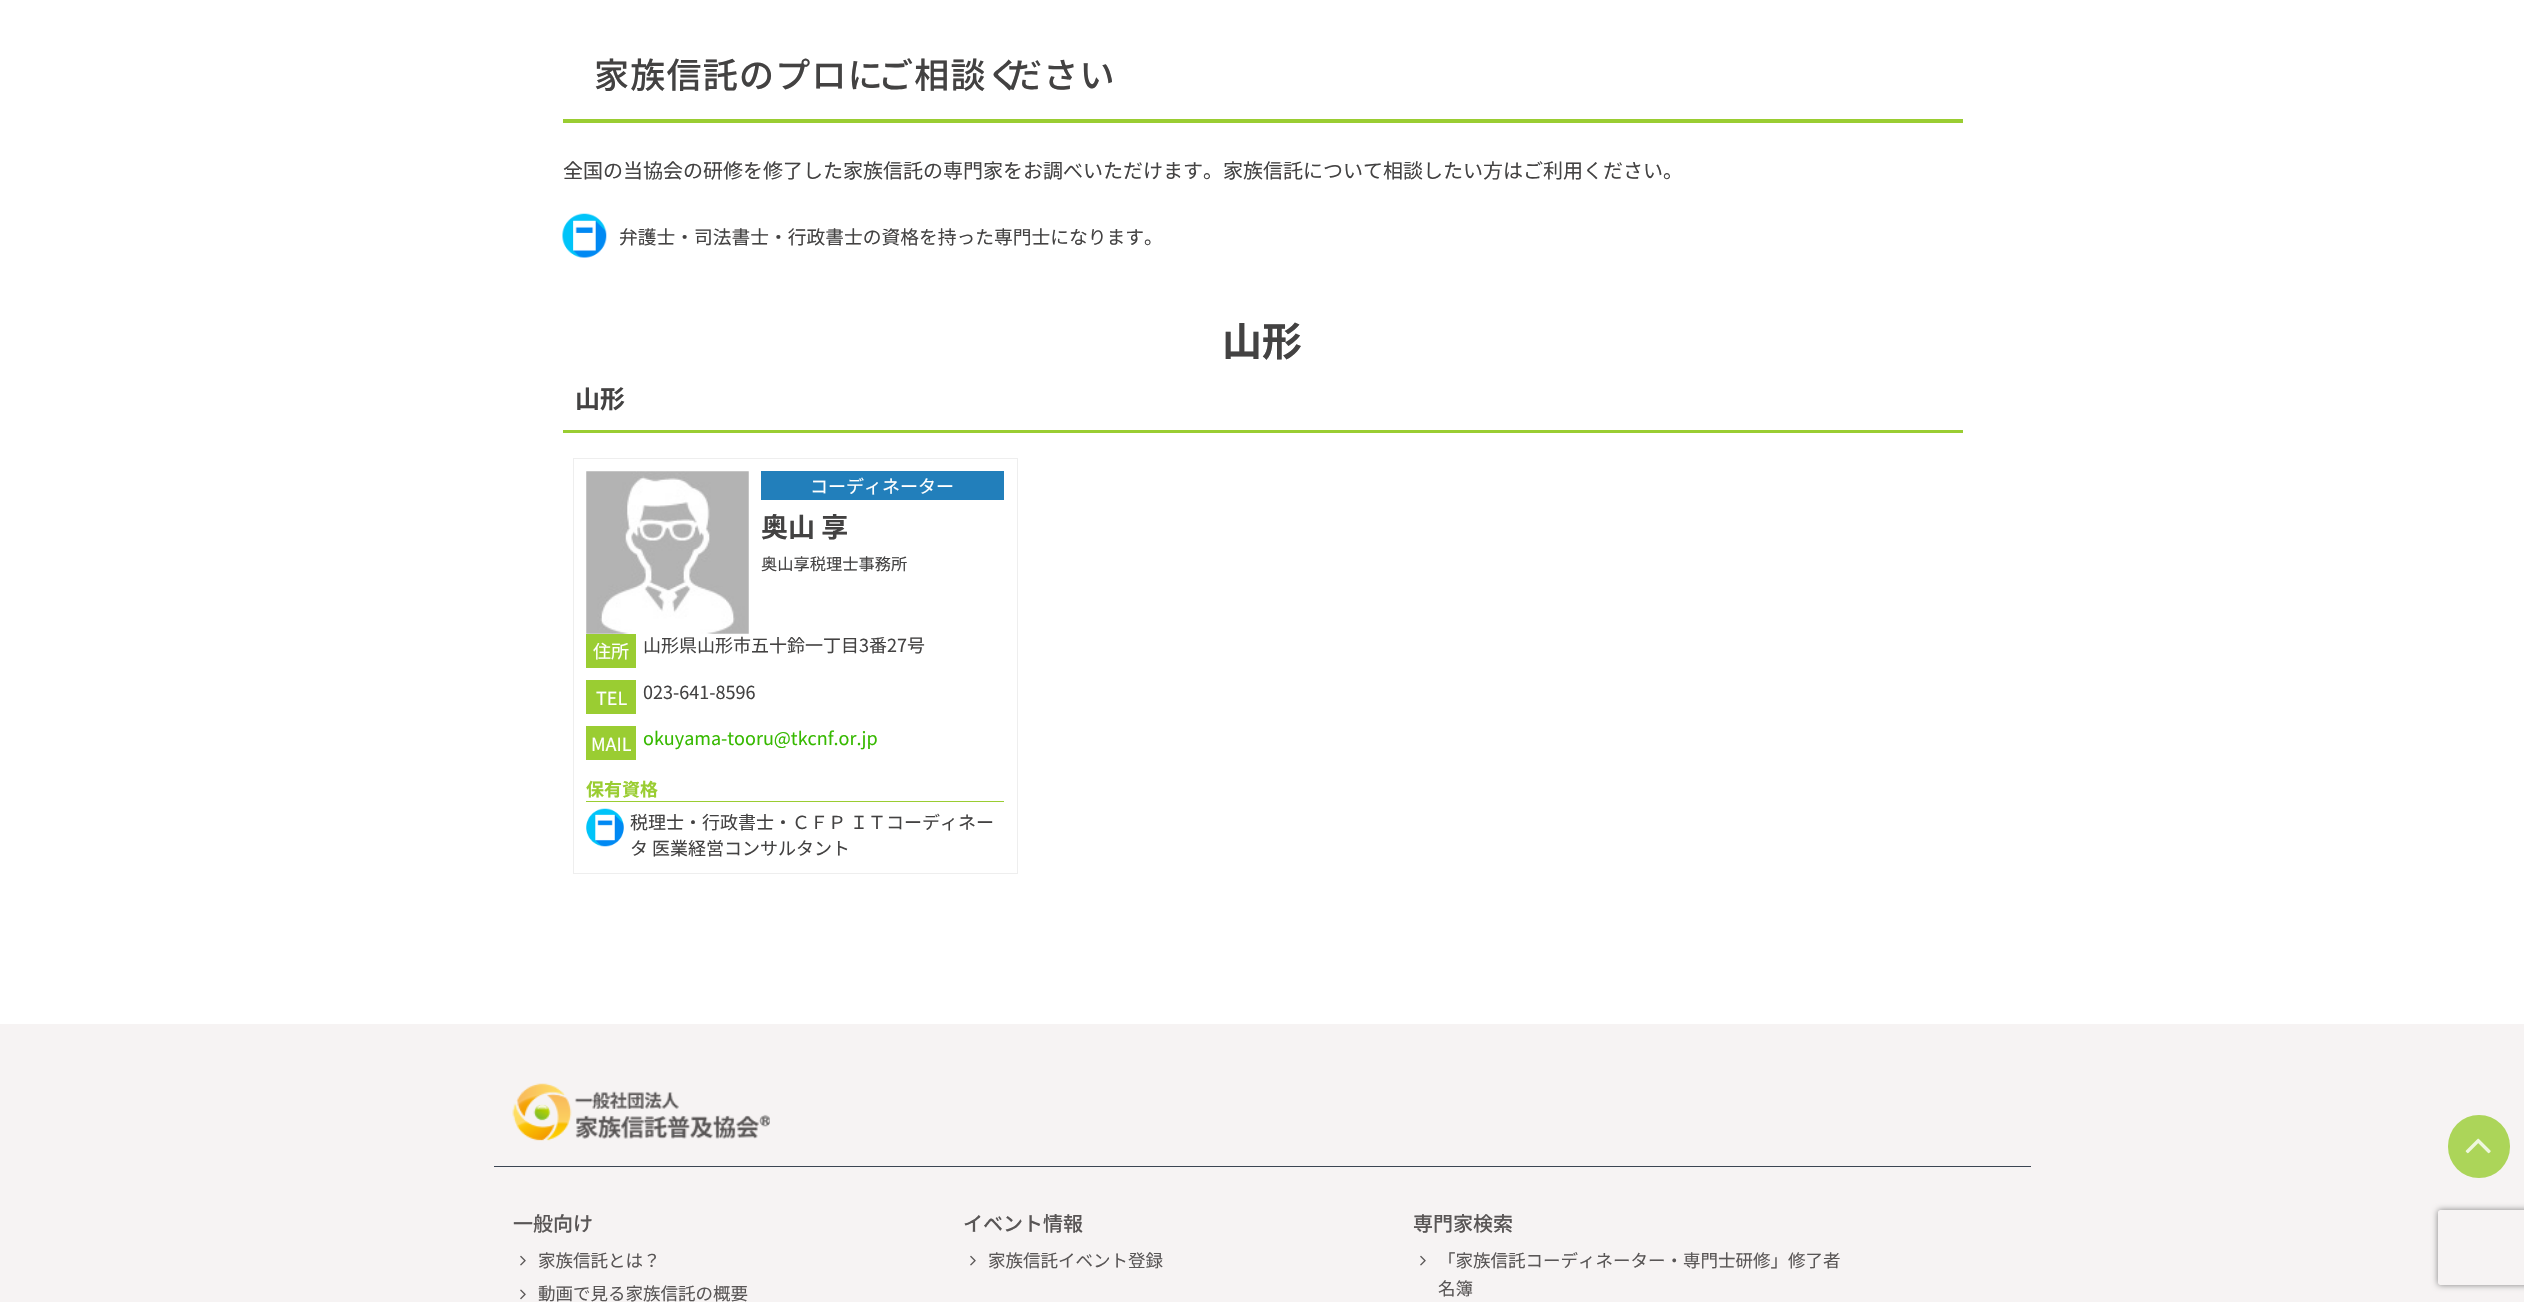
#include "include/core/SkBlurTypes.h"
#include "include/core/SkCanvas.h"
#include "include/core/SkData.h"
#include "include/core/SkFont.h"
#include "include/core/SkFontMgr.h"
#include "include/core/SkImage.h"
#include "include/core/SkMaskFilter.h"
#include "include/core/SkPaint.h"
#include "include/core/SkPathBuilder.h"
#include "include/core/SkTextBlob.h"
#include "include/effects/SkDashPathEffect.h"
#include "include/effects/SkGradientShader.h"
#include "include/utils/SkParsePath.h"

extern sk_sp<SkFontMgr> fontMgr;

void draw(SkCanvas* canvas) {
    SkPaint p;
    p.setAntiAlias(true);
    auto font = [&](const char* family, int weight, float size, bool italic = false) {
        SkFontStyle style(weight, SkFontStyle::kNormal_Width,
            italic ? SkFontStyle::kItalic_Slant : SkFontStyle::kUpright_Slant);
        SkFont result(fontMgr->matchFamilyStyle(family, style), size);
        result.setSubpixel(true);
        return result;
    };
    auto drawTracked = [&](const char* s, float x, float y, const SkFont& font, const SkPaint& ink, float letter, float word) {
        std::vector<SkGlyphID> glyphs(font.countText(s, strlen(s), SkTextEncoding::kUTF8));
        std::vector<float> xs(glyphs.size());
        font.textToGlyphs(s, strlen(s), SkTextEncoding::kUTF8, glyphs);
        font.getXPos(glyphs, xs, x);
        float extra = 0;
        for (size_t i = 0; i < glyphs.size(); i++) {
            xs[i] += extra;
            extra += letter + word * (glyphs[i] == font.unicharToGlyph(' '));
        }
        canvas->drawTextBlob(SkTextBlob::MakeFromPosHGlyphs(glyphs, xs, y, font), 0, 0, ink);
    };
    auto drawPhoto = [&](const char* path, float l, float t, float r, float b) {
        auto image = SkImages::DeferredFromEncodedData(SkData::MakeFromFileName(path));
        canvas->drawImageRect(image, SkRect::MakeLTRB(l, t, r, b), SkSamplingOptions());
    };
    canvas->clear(0xFFFFFFFF);
    p.setColor(0xFF9ACD32);
    canvas->drawRect(SkRect::MakeLTRB(563, 119, 1963, 123), p);
    auto font1 = font("Noto Sans JP", 500, 35);
    p.setColor(0xFF434242);
    drawTracked("家族信託のプロに", 594, 88, font1, p, 1.25f, 0);
    drawTracked("ご相談く", 878, 88, font1, p, 1.25f, 0);
    drawTracked("ださい", 1007, 88, font1, p, 1.25f, 0);
    auto font2 = font("Noto Sans JP", 400, 20);
    canvas->drawString("全国の当協会の研修を修了した家族信託の専門家をお調べいただけます。家族信託について相談したい方はご利用ください。", 563, 178, font2, p);
    drawPhoto("media/1.png", 562, 213, 607, 258);
    auto font3 = font("Noto Sans JP", 400, 18.75f);
    canvas->drawString("弁護士・司法書士・行政書士の資格を持った専門士になります。", 619, 244, font3, p);
    auto font4 = font("Noto Sans JP", 700, 40);
    canvas->drawString("山形", 1222, 356, font4, p);
    p.setColor(0xFF9ACD32);
    canvas->drawRect(SkRect::MakeLTRB(563, 430, 1963, 433), p);
    auto font5 = font("Noto Sans JP", 700, 25);
    p.setColor(0xFF434242);
    canvas->drawString("山形", 575, 408, font5, p);
    p.setStyle(SkPaint::kStroke_Style);
    p.setStrokeWidth(1);
    p.setColor(0xFFEEEEEE);
    canvas->drawRect(SkRect::MakeLTRB(573.5f, 458.5f, 1017.5f, 873.5f), p);
    drawPhoto("media/2.png", 586, 471, 749, 634);
    p.setStyle(SkPaint::kFill_Style);
    p.setColor(0xFF227FBB);
    canvas->drawRect(SkRect::MakeLTRB(761, 471, 1004, 500), p);
    auto font6 = font("Noto Sans JP", 400, 18);
    p.setColor(0xFFFFFFFF);
    canvas->drawString("コーディネーター", 810, 493, font6, p);
    auto font7 = font("Noto Sans JP", 700, 27);
    p.setColor(0xFF434242);
    canvas->drawString("奥山 享", 761, 537, font7, p);
    auto font8 = font("Noto Sans JP", 400, 16.25f);
    canvas->drawString("奥山享税理士事務所", 761, 570, font8, p);
    p.setColor(0xFF9ACD32);
    canvas->drawRect(SkRect::MakeLTRB(586, 634, 636, 668), p);
    p.setColor(0xFFFFFFFF);
    canvas->drawString("住所", 593, 658, font6, p);
    p.setColor(0xFF434242);
    canvas->drawString("山形県山形市五十鈴一丁目3番27号", 643, 652, font6, p);
    p.setColor(0xFF9ACD32);
    canvas->drawRect(SkRect::MakeLTRB(586, 680, 636, 714), p);
    p.setColor(0xFFFFFFFF);
    canvas->drawString("TEL", 596, 705, font6, p);
    p.setColor(0xFF434242);
    canvas->drawString("023-641-8596", 643, 699, font6, p);
    p.setColor(0xFF9ACD32);
    canvas->drawRect(SkRect::MakeLTRB(586, 726, 636, 760), p);
    p.setColor(0xFFFFFFFF);
    canvas->drawString("MAIL", 591, 751, font6, p);
    p.setColor(0xFF36B900);
    canvas->drawString("okuyama-tooru@tkcnf.or.jp", 643, 745, font6, p);
    p.setColor(0xFF9ACD32);
    canvas->drawRect(SkRect::MakeLTRB(586, 801, 1004, 802), p);
    auto font9 = font("Noto Sans JP", 700, 18);
    canvas->drawString("保有資格", 586, 796, font9, p);
    drawPhoto("media/3.png", 586, 808, 624, 847);
    p.setColor(0xFF434242);
    canvas->drawString("税理士・行政書士・ＣＦＰ ＩＴコーディネー", 630, 829, font6, p);
    canvas->drawString("タ 医業経営コンサルタント", 630, 855, font6, p);
    p.setColor(0xFFF6F3F3);
    canvas->drawRect(SkRect::MakeLTRB(0, 1024, 2524, 1302), p);
    p.setColor(0xFFACD559);
    canvas->drawRoundRect(SkRect::MakeLTRB(2448, 1115, 2510, 1178), 31, 31, p);
    drawPhoto("media/4.png", 2465, 1138, 2491, 1154);
    p.setColor(0xFF3B4552);
    canvas->drawRect(SkRect::MakeLTRB(494, 1166, 2031, 1167), p);
    drawPhoto("media/5.png", 512, 1083, 770, 1141);
    auto font10 = font("Noto Sans JP", 500, 20);
    p.setColor(0xFF595656);
    canvas->drawString("一般向け", 513, 1231, font10, p);
    drawPhoto("media/6.png", 520, 1255, 526, 1266);
    auto font11 = font("Noto Sans JP", 400, 17.5f);
    canvas->drawString("家族信託とは？", 538, 1267, font11, p);
    drawPhoto("media/7.png", 520, 1289, 526, 1300);
    canvas->drawString("動画で見る家族信託の概要", 538, 1300, font11, p);
    canvas->drawString("イベント情報", 963, 1231, font10, p);
    drawPhoto("media/6.png", 970, 1255, 976, 1266);
    canvas->drawString("家族信託イベント登録", 988, 1267, font11, p);
    canvas->drawString("専門家検索", 1413, 1231, font10, p);
    drawPhoto("media/6.png", 1420, 1255, 1426, 1266);
    canvas->drawString("「家族信託コーディネーター・専門士研修」修了者", 1438, 1267, font11, p);
    canvas->drawString("名簿", 1438, 1295, font11, p);
    canvas->save();
    canvas->clipPath(SkPathBuilder(SkPathFillType::kEvenOdd).moveTo(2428, 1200).lineTo(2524, 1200).lineTo(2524, 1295).lineTo(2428, 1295).close().moveTo(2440.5f, 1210).lineTo(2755.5f, 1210).cubicTo(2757, 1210, 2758, 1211, 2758, 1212.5f).lineTo(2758, 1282.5f).cubicTo(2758, 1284, 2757, 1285, 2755.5f, 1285).lineTo(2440.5f, 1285).cubicTo(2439, 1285, 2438, 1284, 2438, 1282.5f).lineTo(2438, 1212.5f).cubicTo(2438, 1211, 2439, 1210, 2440.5f, 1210).close().detach(), true);
    p.setColor(0xFF808080);
    p.setMaskFilter(SkMaskFilter::MakeBlur(kNormal_SkBlurStyle, 3));
    canvas->drawRoundRect(SkRect::MakeLTRB(2438, 1210, 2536, 1285), 2.5f, 2.5f, p);
    p.setMaskFilter(nullptr);
    canvas->restore();
}
